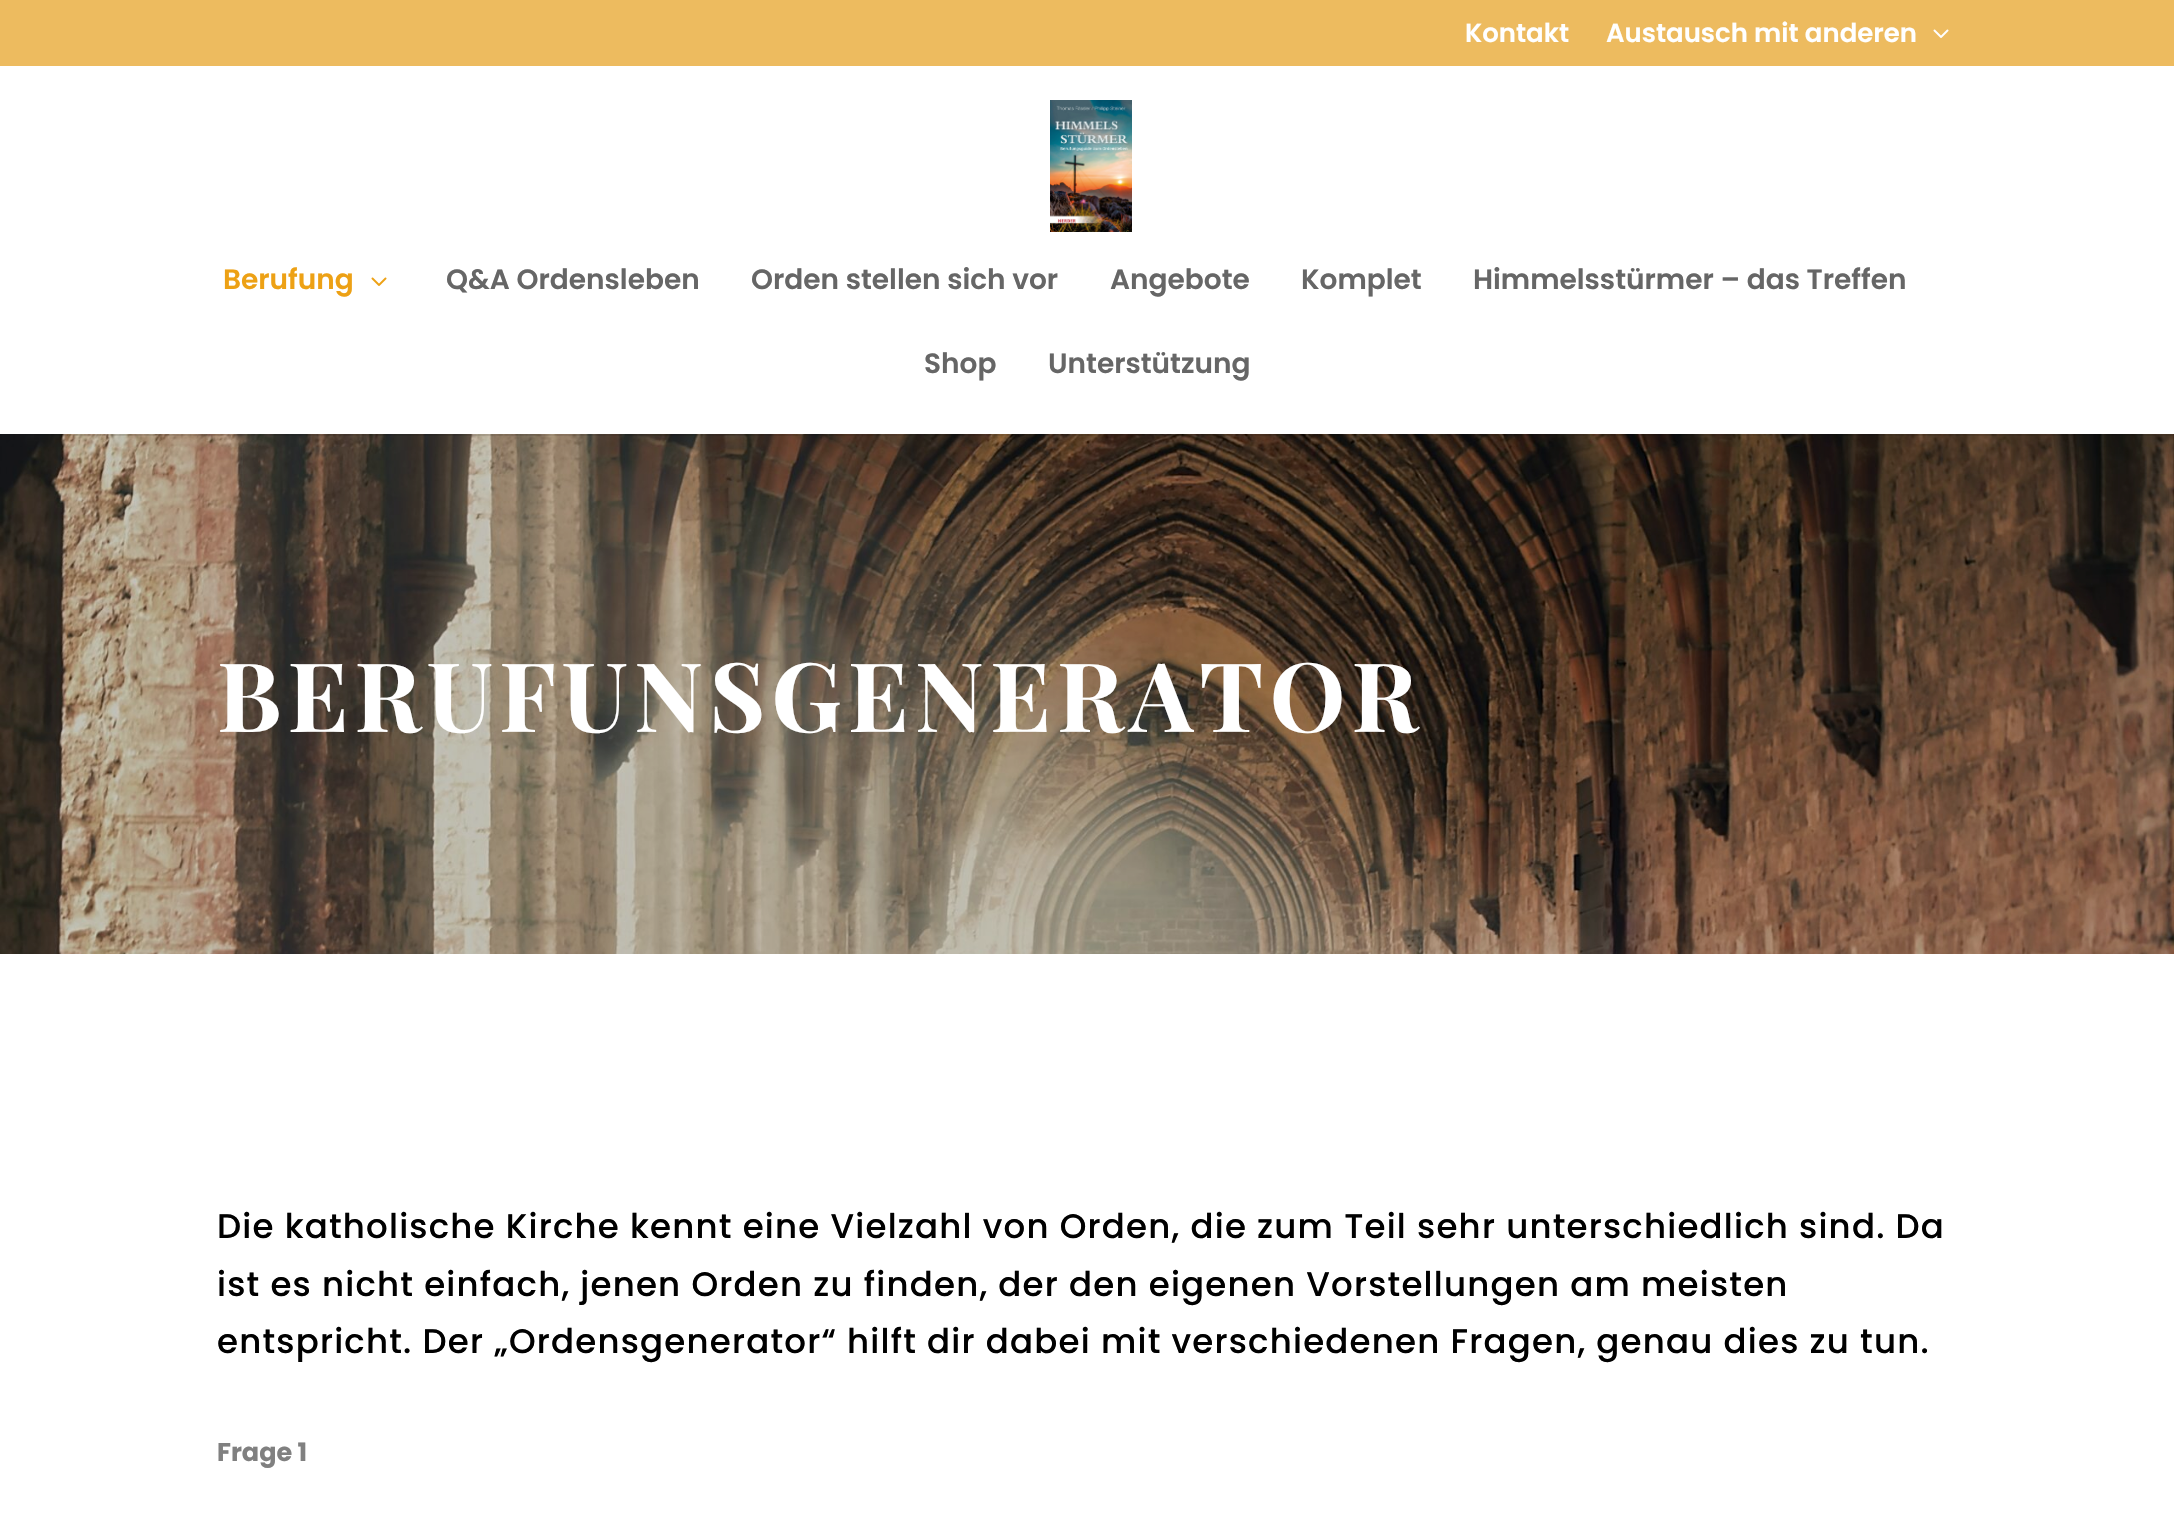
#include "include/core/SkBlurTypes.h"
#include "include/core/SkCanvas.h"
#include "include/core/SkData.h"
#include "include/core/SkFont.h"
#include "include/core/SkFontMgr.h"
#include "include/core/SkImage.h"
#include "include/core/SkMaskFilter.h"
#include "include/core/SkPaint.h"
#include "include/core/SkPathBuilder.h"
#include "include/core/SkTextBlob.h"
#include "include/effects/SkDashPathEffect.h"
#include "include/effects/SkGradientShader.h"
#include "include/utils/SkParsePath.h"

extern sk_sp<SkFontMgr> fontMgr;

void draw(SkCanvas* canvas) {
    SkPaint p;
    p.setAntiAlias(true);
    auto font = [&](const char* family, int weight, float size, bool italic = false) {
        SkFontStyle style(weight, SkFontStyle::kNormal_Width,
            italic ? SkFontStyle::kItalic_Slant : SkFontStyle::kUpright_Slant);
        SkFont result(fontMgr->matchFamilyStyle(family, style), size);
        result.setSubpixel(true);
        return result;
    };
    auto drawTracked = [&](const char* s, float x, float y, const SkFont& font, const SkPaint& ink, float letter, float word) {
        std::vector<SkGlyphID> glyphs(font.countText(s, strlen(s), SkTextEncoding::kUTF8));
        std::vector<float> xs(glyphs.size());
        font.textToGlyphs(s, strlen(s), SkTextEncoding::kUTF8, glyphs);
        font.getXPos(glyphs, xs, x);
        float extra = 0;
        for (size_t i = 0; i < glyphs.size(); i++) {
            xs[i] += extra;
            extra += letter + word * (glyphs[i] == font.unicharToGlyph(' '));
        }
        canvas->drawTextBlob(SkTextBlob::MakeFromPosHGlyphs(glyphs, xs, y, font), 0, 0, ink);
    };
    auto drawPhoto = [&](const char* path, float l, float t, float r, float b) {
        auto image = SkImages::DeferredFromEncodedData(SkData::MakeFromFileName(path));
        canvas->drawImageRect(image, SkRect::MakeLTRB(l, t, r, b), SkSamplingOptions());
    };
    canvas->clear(0xFFFFFFFF);
    p.setColor(0xFFEDBB5F);
    canvas->drawRect(SkRect::MakeLTRB(0, 0, 2174, 66), p);
    auto font1 = font("Poppins", 600, 26);
    p.setColor(0xFFFFFFFF);
    canvas->drawString("Kontakt", 1465, 42, font1, p);
    canvas->drawString("Austausch mit anderen", 1606, 42, font1, p);
    drawPhoto("media/1.png", 1933, 29, 1949, 38);
    drawPhoto("media/4.png", 0, 434, 2174, 954);
    p.setColor(0x1A000000);
    canvas->drawRect(SkRect::MakeLTRB(25, 434, 2174, 436), p);
    drawPhoto("media/2.png", 1050, 100, 1132, 232);
    auto font2 = font("Poppins", 600, 28);
    p.setColor(0xFFEDA115);
    canvas->drawString("Berufung", 223, 289, font2, p);
    drawPhoto("media/3.png", 371, 277, 387, 286);
    p.setColor(0xFF666666);
    {
        const struct { const char* s; float x, y; } items[] = {
            {"Q&A Ordensleben", 446, 289},
            {"Orden stellen sich vor", 751, 289},
            {"Angebote", 1110, 289},
            {"Komplet", 1301, 289},
            {"Himmelsstürmer – das Treffen", 1473, 289},
            {"Shop", 924, 373},
            {"Unterstützung", 1048, 373},
        };
        for (auto [s, x, y] : items) {
            canvas->drawString(s, x, y, font2, p);
        }
    }
    auto font3 = font("Playfair Display", 700, 96);
    p.setColor(0xFFFFFFFF);
    drawTracked("BERUFUNSGENERATOR", 217, 732, font3, p, 6, 0);
    auto font4 = font("Poppins", 500, 34);
    p.setColor(0xFF000000);
    {
        const struct { const char* s; float x, y; } items[] = {
            {"Die katholische Kirche kennt eine Vielzahl von Orden, die zum Teil sehr unterschiedlich sind. Da", 217, 1238},
            {"ist es nicht einfach, jenen Orden zu finden, der den eigenen Vorstellungen am meisten", 217, 1296},
            {"entspricht. Der „Ordensgenerator“ hilft dir dabei mit verschiedenen Fragen, genau dies zu tun.", 217, 1353},
        };
        for (auto [s, x, y] : items) {
            drawTracked(s, x, y, font4, p, 1.2f, 0);
        }
    }
    auto font5 = font("Poppins", 700, 25.5f);
    p.setColor(0xFF808080);
    canvas->drawString("Frage 1", 217, 1461, font5, p);
}
